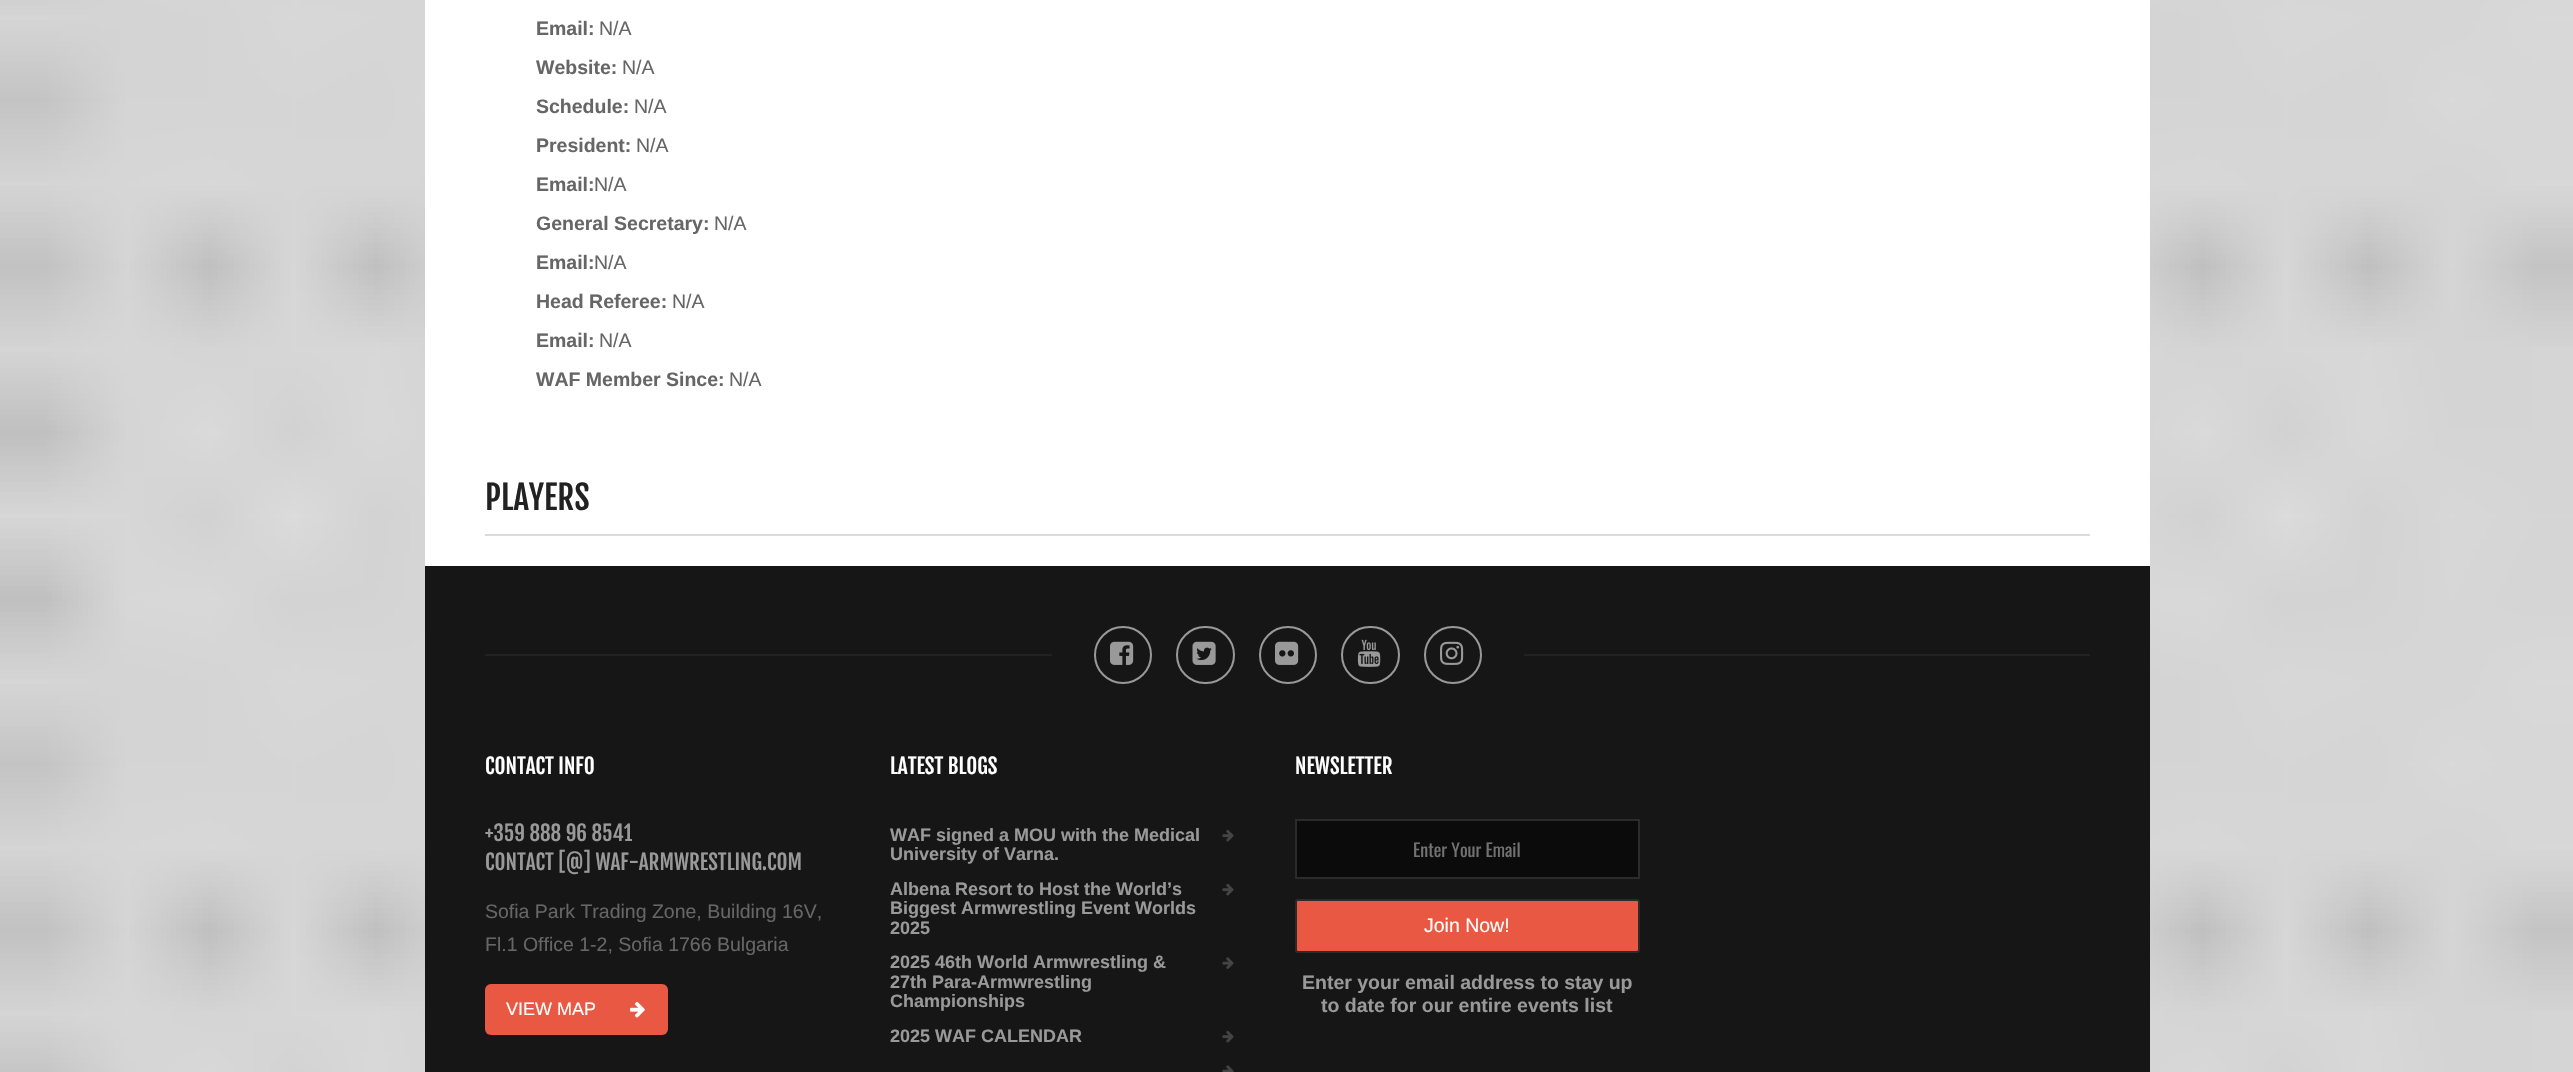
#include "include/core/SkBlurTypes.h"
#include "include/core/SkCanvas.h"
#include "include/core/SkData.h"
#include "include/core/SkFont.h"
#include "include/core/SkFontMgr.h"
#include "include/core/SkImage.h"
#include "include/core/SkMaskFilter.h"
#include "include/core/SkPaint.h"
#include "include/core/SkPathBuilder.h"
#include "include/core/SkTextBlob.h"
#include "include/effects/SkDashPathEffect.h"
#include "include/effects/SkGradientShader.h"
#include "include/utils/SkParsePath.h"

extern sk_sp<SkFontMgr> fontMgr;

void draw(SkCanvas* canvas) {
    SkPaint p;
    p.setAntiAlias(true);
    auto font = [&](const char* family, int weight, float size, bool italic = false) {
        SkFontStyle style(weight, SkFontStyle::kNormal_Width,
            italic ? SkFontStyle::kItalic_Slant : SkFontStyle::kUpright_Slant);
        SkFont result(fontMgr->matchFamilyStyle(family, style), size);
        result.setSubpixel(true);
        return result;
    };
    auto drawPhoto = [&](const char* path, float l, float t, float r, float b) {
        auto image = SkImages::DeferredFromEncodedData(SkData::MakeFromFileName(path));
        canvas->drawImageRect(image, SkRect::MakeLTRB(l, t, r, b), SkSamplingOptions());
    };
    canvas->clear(0xFFFFFFFF);
    drawPhoto("media/1.png", 0, 0, 2573, 1072);
    p.setColor(0xFFFFFFFF);
    canvas->drawRect(SkRect::MakeLTRB(425, 0, 2150, 566), p);
    auto font1 = font("Liberation Sans", 700, 19.5f);
    p.setColor(0xFF666666);
    canvas->drawString("Email:", 536, 35, font1, p);
    auto font2 = font("Liberation Sans", 400, 19.5f);
    canvas->drawString("N/A", 599, 35, font2, p);
    canvas->drawString("Website:", 536, 74, font1, p);
    canvas->drawString("N/A", 622, 74, font2, p);
    canvas->drawString("Schedule:", 536, 113, font1, p);
    canvas->drawString("N/A", 634, 113, font2, p);
    canvas->drawString("President:", 536, 152, font1, p);
    canvas->drawString("N/A", 636, 152, font2, p);
    canvas->drawString("Email:", 536, 191, font1, p);
    canvas->drawString("N/A", 594, 191, font2, p);
    canvas->drawString("General Secretary:", 536, 230, font1, p);
    canvas->drawString("N/A", 714, 230, font2, p);
    canvas->drawString("Email:", 536, 269, font1, p);
    canvas->drawString("N/A", 594, 269, font2, p);
    canvas->drawString("Head Referee:", 536, 308, font1, p);
    canvas->drawString("N/A", 672, 308, font2, p);
    canvas->drawString("Email:", 536, 347, font1, p);
    canvas->drawString("N/A", 599, 347, font2, p);
    canvas->drawString("WAF Member Since:", 536, 386, font1, p);
    canvas->drawString("N/A", 729, 386, font2, p);
    p.setColor(0xFFDBDBDB);
    canvas->drawRect(SkRect::MakeLTRB(485, 534, 2090, 536), p);
    auto font3 = font("Fjalla One", 400, 33);
    p.setColor(0xFF222222);
    canvas->drawString("PLAYERS", 485, 510, font3, p);
    p.setColor(0xFF161616);
    canvas->drawRect(SkRect::MakeLTRB(425, 566, 2150, 1072), p);
    p.setColor(0xFF222222);
    canvas->drawRect(SkRect::MakeLTRB(485, 654, 1052, 656), p);
    p.setStyle(SkPaint::kStroke_Style);
    p.setStrokeWidth(2);
    p.setColor(0xFF999999);
    canvas->drawCircle(1123, 655, 28, p);
    drawPhoto("media/2.png", 1110, 641, 1134, 665);
    canvas->drawRoundRect(SkRect::MakeLTRB(1177, 627, 1234, 683), 28, 28, p);
    drawPhoto("media/3.png", 1192, 641, 1216, 665);
    canvas->drawCircle(1288, 655, 28, p);
    drawPhoto("media/4.png", 1275, 641, 1299, 665);
    canvas->drawRoundRect(SkRect::MakeLTRB(1342, 627, 1399, 683), 28, 28, p);
    drawPhoto("media/5.png", 1357, 639, 1381, 667);
    canvas->drawCircle(1453, 655, 28, p);
    drawPhoto("media/6.png", 1440, 641, 1464, 665);
    p.setStyle(SkPaint::kFill_Style);
    p.setColor(0xFF222222);
    canvas->drawRect(SkRect::MakeLTRB(1524, 654, 2090, 656), p);
    auto font4 = font("Fjalla One", 400, 21);
    p.setColor(0xFFFFFFFF);
    canvas->drawString("CONTACT INFO", 485, 774, font4, p);
    p.setColor(0xFF999999);
    canvas->drawString("+359 888 96 8541", 485, 841, font4, p);
    canvas->drawString("CONTACT [@] WAF-ARMWRESTLING.COM", 485, 870, font4, p);
    p.setColor(0xFF666666);
    canvas->drawString("Sofia Park Trading Zone, Building 16V,", 485, 918, font2, p);
    canvas->drawString("Fl.1 Office 1-2, Sofia 1766 Bulgaria", 485, 951, font2, p);
    p.setColor(0xFFE95842);
    canvas->drawRoundRect(SkRect::MakeLTRB(485, 984, 668, 1035), 6, 6, p);
    auto font5 = font("Liberation Sans", 400, 18);
    p.setColor(0xFFFFFFFF);
    canvas->drawString("VIEW MAP", 506, 1015, font5, p);
    drawPhoto("media/7.png", 630, 1001, 645, 1018);
    canvas->drawString("LATEST BLOGS", 890, 774, font4, p);
    auto font6 = font("Liberation Sans", 700, 18);
    p.setColor(0xFF999999);
    canvas->drawString("WAF signed a MOU with the Medical", 890, 841, font6, p);
    canvas->drawString("University of Varna.", 890, 860, font6, p);
    drawPhoto("media/8.png", 1222, 829, 1234, 842);
    {
        const struct { const char* s; float x, y; } items[] = {
            {"Albena Resort to Host the World’s", 890, 895},
            {"Biggest Armwrestling Event Worlds", 890, 914},
            {"2025", 890, 934},
        };
        for (auto [s, x, y] : items) {
            canvas->drawString(s, x, y, font6, p);
        }
    }
    drawPhoto("media/8.png", 1222, 883, 1234, 896);
    {
        const struct { const char* s; float x, y; } items[] = {
            {"2025 46th World Armwrestling &", 890, 968},
            {"27th Para-Armwrestling", 890, 988},
            {"Championships", 890, 1007},
        };
        for (auto [s, x, y] : items) {
            canvas->drawString(s, x, y, font6, p);
        }
    }
    drawPhoto("media/9.png", 1222, 957, 1234, 969);
    canvas->drawString("2025 WAF CALENDAR", 890, 1042, font6, p);
    drawPhoto("media/8.png", 1222, 1030, 1234, 1043);
    drawPhoto("media/10.png", 1222, 1065, 1234, 1072);
    p.setColor(0xFFFFFFFF);
    canvas->drawString("NEWSLETTER", 1295, 774, font4, p);
    p.setColor(0xFF0B0B0B);
    canvas->drawRect(SkRect::MakeLTRB(1296, 820, 1639, 878), p);
    p.setStyle(SkPaint::kStroke_Style);
    p.setColor(0xFF2B2B2B);
    canvas->drawRect(SkRect::MakeLTRB(1296, 820, 1639, 878), p);
    auto font7 = font("Oswald", 400, 18);
    p.setStyle(SkPaint::kFill_Style);
    p.setColor(0xFF727272);
    canvas->drawString("Enter Your Email", 1413, 857, font7, p);
    p.setColor(0xFFE95842);
    canvas->drawRoundRect(SkRect::MakeLTRB(1296, 900, 1639, 952), 2, 2, p);
    p.setStyle(SkPaint::kStroke_Style);
    p.setColor(0xFF2B2B2B);
    canvas->drawRoundRect(SkRect::MakeLTRB(1296, 900, 1639, 952), 2, 2, p);
    p.setStyle(SkPaint::kFill_Style);
    p.setColor(0xFFFFFFFF);
    canvas->drawString("Join Now!", 1424, 932, font2, p);
    p.setColor(0xFF999999);
    canvas->drawString("Enter your email address to stay up", 1302, 989, font1, p);
    canvas->drawString("to date for our entire events list", 1321, 1012, font1, p);
}
